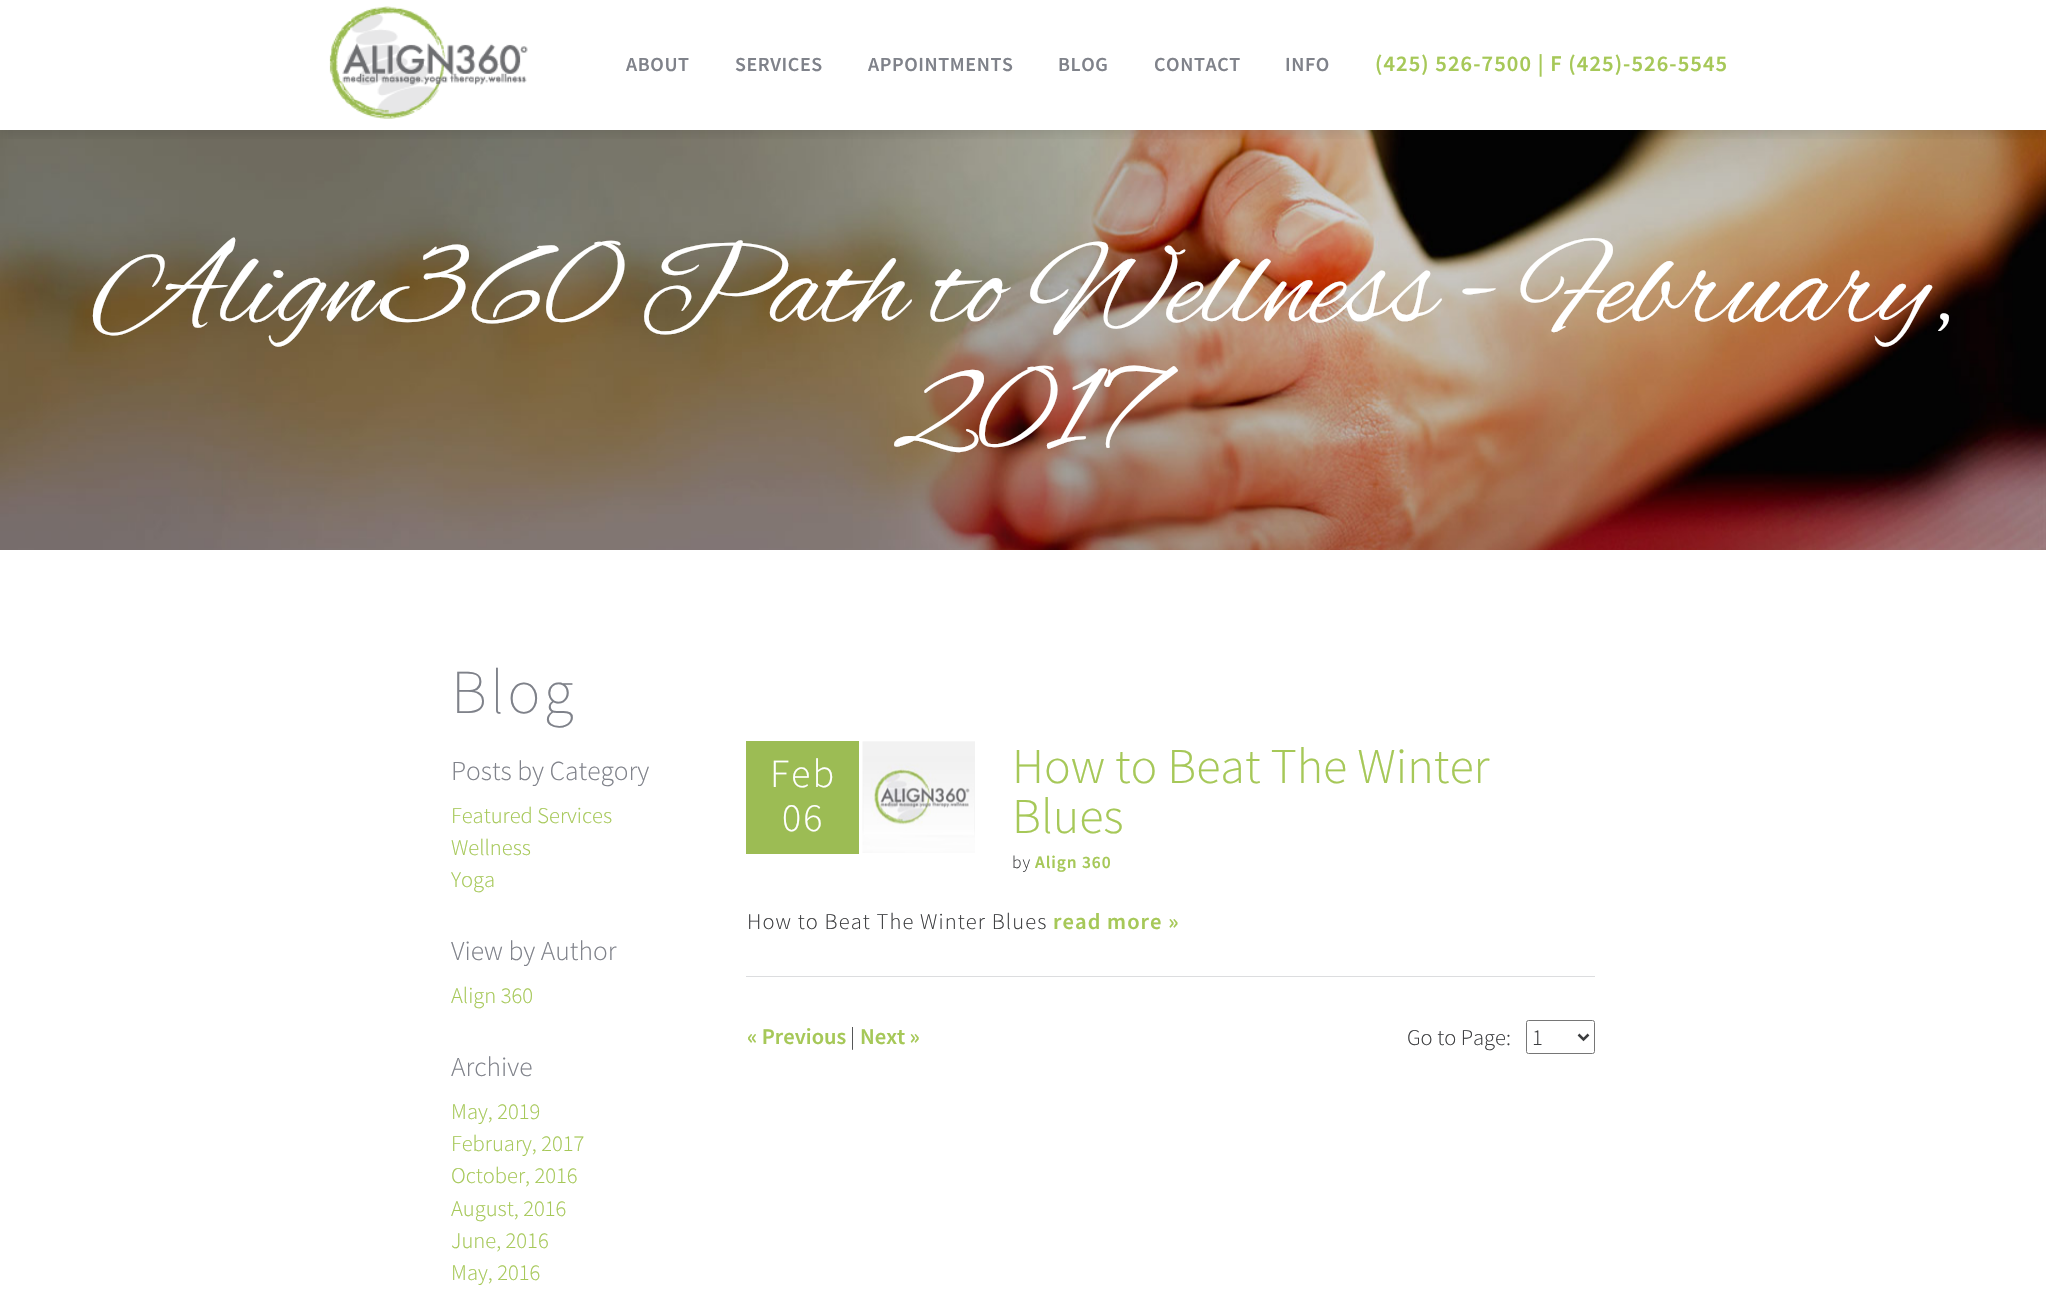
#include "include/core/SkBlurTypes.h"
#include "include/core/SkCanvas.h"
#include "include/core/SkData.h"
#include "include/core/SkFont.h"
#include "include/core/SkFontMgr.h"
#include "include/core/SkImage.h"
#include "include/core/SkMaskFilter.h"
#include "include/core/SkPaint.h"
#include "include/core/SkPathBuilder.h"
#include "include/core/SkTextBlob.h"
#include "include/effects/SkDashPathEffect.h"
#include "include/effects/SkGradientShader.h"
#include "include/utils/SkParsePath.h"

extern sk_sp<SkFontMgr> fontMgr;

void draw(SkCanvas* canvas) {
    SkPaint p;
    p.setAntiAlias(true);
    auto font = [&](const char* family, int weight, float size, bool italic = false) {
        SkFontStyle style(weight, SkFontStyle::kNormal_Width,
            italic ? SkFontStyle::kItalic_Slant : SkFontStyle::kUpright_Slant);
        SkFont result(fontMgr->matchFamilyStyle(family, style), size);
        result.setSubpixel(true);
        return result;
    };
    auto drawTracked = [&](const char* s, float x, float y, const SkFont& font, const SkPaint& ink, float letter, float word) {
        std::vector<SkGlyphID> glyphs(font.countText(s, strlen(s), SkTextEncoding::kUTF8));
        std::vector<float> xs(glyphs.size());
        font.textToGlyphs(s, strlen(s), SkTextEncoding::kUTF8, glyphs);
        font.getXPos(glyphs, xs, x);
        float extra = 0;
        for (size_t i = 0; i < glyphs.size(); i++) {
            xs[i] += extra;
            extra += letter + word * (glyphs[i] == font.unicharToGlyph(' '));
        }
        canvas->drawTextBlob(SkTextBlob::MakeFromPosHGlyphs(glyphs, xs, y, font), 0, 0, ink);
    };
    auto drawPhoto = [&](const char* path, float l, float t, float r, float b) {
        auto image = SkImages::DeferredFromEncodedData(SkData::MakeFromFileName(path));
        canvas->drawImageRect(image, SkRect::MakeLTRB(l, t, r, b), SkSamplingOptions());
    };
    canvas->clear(0xFFFFFFFF);
    drawPhoto("media/2.png", 0, 130, 2046, 550);
    canvas->save();
    canvas->clipRect(SkRect::MakeLTRB(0, 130, 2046, 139));
    p.setColor(0x1A000000);
    p.setMaskFilter(SkMaskFilter::MakeBlur(kNormal_SkBlurStyle, 6));
    canvas->drawRect(SkRect::MakeLTRB(0, 4, 2046, 134), p);
    p.setMaskFilter(nullptr);
    canvas->restore();
    drawPhoto("media/1.png", 329, 6, 528, 119);
    auto font1 = font("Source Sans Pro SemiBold", 600, 20);
    p.setColor(0xFF7F828A);
    {
        const struct { const char* s; float x, y; } items[] = {
            {"ABOUT", 626, 71},
            {"SERVICES", 735, 71},
            {"APPOINTMENTS", 868, 71},
            {"BLOG", 1058, 71},
            {"CONTACT", 1154, 71},
            {"INFO", 1285, 71},
        };
        for (auto [s, x, y] : items) {
            drawTracked(s, x, y, font1, p, 0.6f, 0);
        }
    }
    auto font2 = font("Source Sans Pro SemiBold", 600, 22.5f);
    p.setColor(0xFFA6C858);
    drawTracked("(425) 526-7500 | F (425)-526-5545", 1375, 71, font2, p, 1.1f, 0);
    auto font3 = font("Alex Brush", 400, 125);
    p.setColor(0xFFFFFFFF);
    canvas->drawString("Align360 Path to Wellness - February,", 93, 321, font3, p);
    canvas->drawString("2017", 894, 446, font3, p);
    auto font4 = font("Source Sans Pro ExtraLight", 200, 62.5f);
    p.setColor(0xFF7F828A);
    drawTracked("Blog", 451, 713, font4, p, 3, 0);
    auto font5 = font("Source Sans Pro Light", 300, 27.5f);
    canvas->drawString("Posts by Category", 451, 780, font5, p);
    auto font6 = font("Source Sans Pro Light", 300, 22.5f);
    p.setColor(0xFFA6C858);
    {
        const struct { const char* s; float x, y; } items[] = {
            {"Featured Services", 451, 823},
            {"Wellness", 451, 855},
            {"Yoga", 451, 887},
        };
        for (auto [s, x, y] : items) {
            canvas->drawString(s, x, y, font6, p);
        }
    }
    p.setColor(0xFF7F828A);
    canvas->drawString("View by Author", 451, 960, font5, p);
    p.setColor(0xFFA6C858);
    canvas->drawString("Align 360", 451, 1003, font6, p);
    p.setColor(0xFF7F828A);
    canvas->drawString("Archive", 451, 1076, font5, p);
    p.setColor(0xFFA6C858);
    {
        const struct { const char* s; float x, y; } items[] = {
            {"May, 2019", 451, 1119},
            {"February, 2017", 451, 1151},
            {"October, 2016", 451, 1183},
            {"August, 2016", 451, 1216},
            {"June, 2016", 451, 1248},
            {"May, 2016", 451, 1280},
        };
        for (auto [s, x, y] : items) {
            canvas->drawString(s, x, y, font6, p);
        }
    }
    p.setColor(0xFFDCDDDF);
    canvas->drawRect(SkRect::MakeLTRB(746, 976, 1595, 977), p);
    p.setColor(0xFF9CBC54);
    canvas->drawRect(SkRect::MakeLTRB(746, 741, 859, 854), p);
    auto font7 = font("Source Sans Pro Light", 300, 40);
    p.setColor(0xFFFFFFFF);
    drawTracked("Feb", 770, 787, font7, p, 2, 0);
    drawTracked("06", 782, 831, font7, p, 2, 0);
    drawPhoto("media/3.png", 862, 741, 975, 853);
    auto font8 = font("Source Sans Pro Light", 300, 50);
    p.setColor(0xFFA6C858);
    canvas->drawString("How to Beat The Winter", 1012, 783, font8, p);
    canvas->drawString("Blues", 1012, 833, font8, p);
    auto font9 = font("Source Sans Pro Light", 300, 17.5f);
    p.setColor(0xFF3C3D3F);
    drawTracked("by", 1012, 868, font9, p, 0.9f, 0);
    auto font10 = font("Source Sans Pro SemiBold", 600, 17.5f);
    p.setColor(0xFFA6C858);
    drawTracked("Align 360", 1035, 868, font10, p, 0.9f, 0);
    p.setColor(0xFF3C3D3F);
    drawTracked("How to Beat The Winter Blues", 747, 929, font6, p, 1.1f, 0);
    p.setColor(0xFFA6C858);
    drawTracked("read more »", 1053, 929, font2, p, 1.1f, 0);
    canvas->drawString("« Previous", 747, 1044, font2, p);
    p.setColor(0xFF3C3D3F);
    canvas->drawString("|", 850, 1044, font6, p);
    p.setColor(0xFFA6C858);
    canvas->drawString("Next »", 860, 1044, font2, p);
    p.setColor(0xFF3C3D3F);
    canvas->drawString("Go to Page:", 1407, 1045, font6, p);
    p.setStyle(SkPaint::kStroke_Style);
    p.setStrokeWidth(1);
    p.setColor(0xFF767676);
    canvas->drawRoundRect(SkRect::MakeLTRB(1526.5f, 1020.5f, 1594.5f, 1053.5f), 2, 2, p);
    p.setStrokeWidth(2.5f);
    p.setColor(0xFF3C3D3F);
    canvas->drawPath(SkPathBuilder().moveTo(1578.5f, 1034.5f).lineTo(1583.5f, 1039.5f).lineTo(1588.5f, 1034.5f).detach(), p);
    p.setStyle(SkPaint::kFill_Style);
    canvas->drawString("1", 1532, 1045, font6, p);
}
